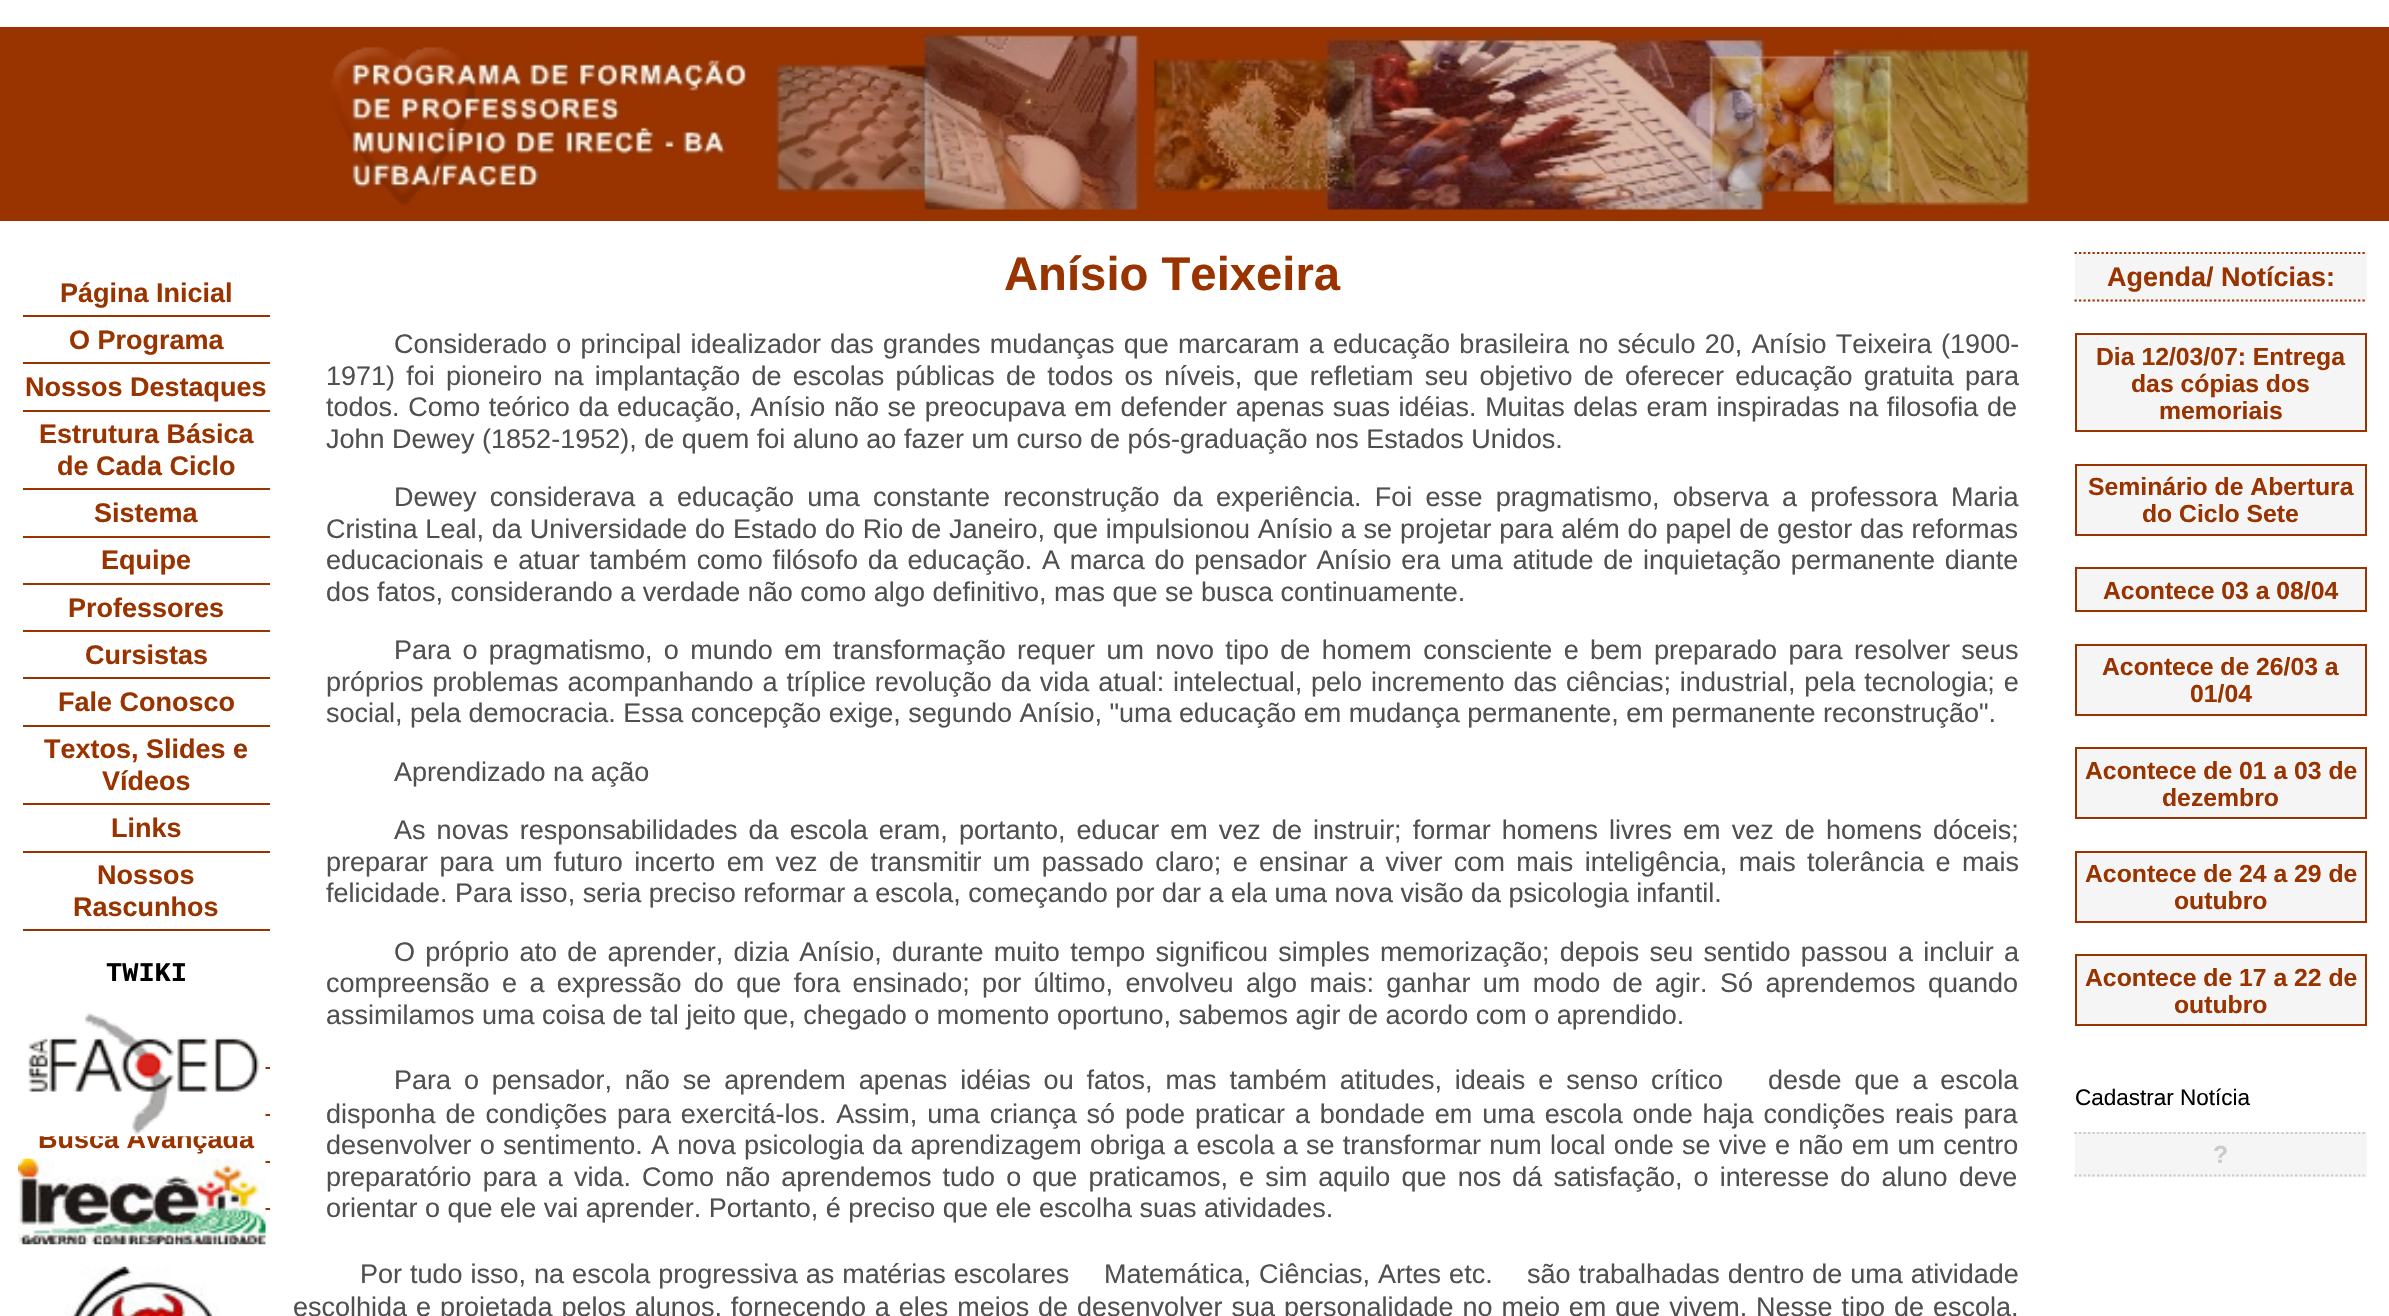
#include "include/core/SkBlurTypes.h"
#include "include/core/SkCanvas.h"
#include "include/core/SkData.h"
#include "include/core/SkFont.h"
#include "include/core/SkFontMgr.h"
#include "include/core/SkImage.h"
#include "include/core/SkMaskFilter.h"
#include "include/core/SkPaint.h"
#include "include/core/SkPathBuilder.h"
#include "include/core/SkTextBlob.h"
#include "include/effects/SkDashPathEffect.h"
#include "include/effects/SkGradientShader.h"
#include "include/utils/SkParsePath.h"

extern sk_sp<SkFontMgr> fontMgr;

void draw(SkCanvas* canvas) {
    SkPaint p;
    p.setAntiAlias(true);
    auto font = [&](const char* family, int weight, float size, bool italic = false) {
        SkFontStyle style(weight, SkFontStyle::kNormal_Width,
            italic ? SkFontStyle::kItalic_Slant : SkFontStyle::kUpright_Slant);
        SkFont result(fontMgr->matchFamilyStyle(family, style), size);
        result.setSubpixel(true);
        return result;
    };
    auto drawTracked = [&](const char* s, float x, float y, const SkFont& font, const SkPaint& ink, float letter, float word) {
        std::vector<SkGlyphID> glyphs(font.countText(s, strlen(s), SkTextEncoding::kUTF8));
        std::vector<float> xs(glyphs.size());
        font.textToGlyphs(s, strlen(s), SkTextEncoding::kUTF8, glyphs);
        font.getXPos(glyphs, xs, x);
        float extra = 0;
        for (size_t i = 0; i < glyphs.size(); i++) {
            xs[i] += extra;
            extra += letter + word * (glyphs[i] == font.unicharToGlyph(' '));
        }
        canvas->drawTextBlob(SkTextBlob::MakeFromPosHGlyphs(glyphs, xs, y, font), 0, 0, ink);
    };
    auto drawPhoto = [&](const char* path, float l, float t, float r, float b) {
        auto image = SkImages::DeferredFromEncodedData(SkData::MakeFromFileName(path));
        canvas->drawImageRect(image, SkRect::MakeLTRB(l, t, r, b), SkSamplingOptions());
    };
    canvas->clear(0xFFFFFFFF);
    p.setColor(0xFF993300);
    canvas->drawRect(SkRect::MakeLTRB(0, 27, 2389, 221), p);
    drawPhoto("media/1.png", 331, 33, 2031, 212);
    canvas->drawRect(SkRect::MakeLTRB(23, 315, 270, 317), p);
    auto font1 = font("Liberation Sans", 700, 27);
    canvas->drawString("Página Inicial", 60, 302, font1, p);
    canvas->drawRect(SkRect::MakeLTRB(23, 362, 270, 364), p);
    canvas->drawString("O Programa", 69, 349, font1, p);
    canvas->drawRect(SkRect::MakeLTRB(23, 410, 270, 412), p);
    canvas->drawString("Nossos Destaques", 25, 396, font1, p);
    canvas->drawRect(SkRect::MakeLTRB(23, 488, 270, 490), p);
    canvas->drawString("Estrutura Básica", 39, 443, font1, p);
    canvas->drawString("de Cada Ciclo", 57, 475, font1, p);
    canvas->drawRect(SkRect::MakeLTRB(23, 536, 270, 538), p);
    canvas->drawString("Sistema", 94, 522, font1, p);
    canvas->drawRect(SkRect::MakeLTRB(23, 583, 270, 585), p);
    canvas->drawString("Equipe", 101, 569, font1, p);
    canvas->drawRect(SkRect::MakeLTRB(23, 630, 270, 632), p);
    canvas->drawString("Professores", 68, 617, font1, p);
    canvas->drawRect(SkRect::MakeLTRB(23, 677, 270, 679), p);
    canvas->drawString("Cursistas", 85, 664, font1, p);
    canvas->drawRect(SkRect::MakeLTRB(23, 725, 270, 727), p);
    canvas->drawString("Fale Conosco", 58, 711, font1, p);
    canvas->drawRect(SkRect::MakeLTRB(23, 803, 270, 805), p);
    canvas->drawString("Textos, Slides e", 44, 758, font1, p);
    canvas->drawString("Vídeos", 102, 790, font1, p);
    canvas->drawRect(SkRect::MakeLTRB(23, 851, 270, 853), p);
    canvas->drawString("Links", 111, 837, font1, p);
    canvas->drawRect(SkRect::MakeLTRB(23, 929, 270, 931), p);
    canvas->drawString("Nossos", 97, 884, font1, p);
    canvas->drawString("Rascunhos", 73, 916, font1, p);
    auto font2 = font("Liberation Mono", 700, 27);
    p.setColor(0xFF000000);
    canvas->drawString("TWIKI", 106, 981, font2, p);
    {
        const struct { float l, t, r, b; SkColor color; } items[] = {
            {265, 1067, 270, 1069, 0xFF993300},
            {265, 1114, 270, 1116, 0xFF993300},
            {265, 1161, 270, 1163, 0xFF993300},
        };
        for (auto [l, t, r, b, color] : items) {
            p.setColor(color);
            canvas->drawRect(SkRect::MakeLTRB(l, t, r, b), p);
        }
    }
    canvas->drawString("Busca Avançada", 38, 1148, font1, p);
    canvas->drawRect(SkRect::MakeLTRB(265, 1208, 270, 1210), p);
    auto font3 = font("Liberation Sans", 700, 47.25f);
    canvas->drawString("Anísio Teixeira", 1004, 290, font3, p);
    auto font4 = font("Liberation Sans", 400, 27);
    p.setColor(0xFF505050);
    drawTracked("Considerado o principal idealizador das grandes mudanças que marcaram a educação brasileira no século 20, Anísio Teixeira (1900-", 394, 353, font4, p, 0, 1.75f);
    drawTracked("1971) foi pioneiro na implantação de escolas públicas de todos os níveis, que refletiam seu objetivo de oferecer educação gratuita para", 326, 385, font4, p, 0, 3.75f);
    drawTracked("todos. Como teórico da educação, Anísio não se preocupava em defender apenas suas idéias. Muitas delas eram inspiradas na filosofia de", 326, 416, font4, p, 0, 1.1f);
    canvas->drawString("John Dewey (1852-1952), de quem foi aluno ao fazer um curso de pós-graduação nos Estados Unidos.", 326, 448, font4, p);
    drawTracked("Dewey considerava a educação uma constante reconstrução da experiência. Foi esse pragmatismo, observa a professora Maria", 394, 506, font4, p, 0, 5.75f);
    drawTracked("Cristina Leal, da Universidade do Estado do Rio de Janeiro, que impulsionou Anísio a se projetar para além do papel de gestor das reformas", 326, 538, font4, p, 0, 0.35f);
    drawTracked("educacionais e atuar também como filósofo da educação. A marca do pensador Anísio era uma atitude de inquietação permanente diante", 326, 569, font4, p, 0, 2.25f);
    canvas->drawString("dos fatos, considerando a verdade não como algo definitivo, mas que se busca continuamente.", 326, 601, font4, p);
    drawTracked("Para o pragmatismo, o mundo em transformação requer um novo tipo de homem consciente e bem preparado para resolver seus", 394, 659, font4, p, 0, 3.9f);
    drawTracked("próprios problemas acompanhando a tríplice revolução da vida atual: intelectual, pelo incremento das ciências; industrial, pela tecnologia; e", 326, 691, font4, p, 0, 1.4f);
    canvas->drawString("social, pela democracia. Essa concepção exige, segundo Anísio, \"uma educação em mudança permanente, em permanente reconstrução\".", 326, 722, font4, p);
    canvas->drawString("Aprendizado na ação", 394, 781, font4, p);
    drawTracked("As novas responsabilidades da escola eram, portanto, educar em vez de instruir; formar homens livres em vez de homens dóceis;", 394, 839, font4, p, 0, 3.6f);
    drawTracked("preparar para um futuro incerto em vez de transmitir um passado claro; e ensinar a viver com mais inteligência, mais tolerância e mais", 326, 871, font4, p, 0, 3.9f);
    canvas->drawString("felicidade. Para isso, seria preciso reformar a escola, começando por dar a ela uma nova visão da psicologia infantil.", 326, 902, font4, p);
    drawTracked("O próprio ato de aprender, dizia Anísio, durante muito tempo significou simples memorização; depois seu sentido passou a incluir a", 394, 961, font4, p, 0, 2.75f);
    drawTracked("compreensão e a expressão do que fora ensinado; por último, envolveu algo mais: ganhar um modo de agir. Só aprendemos quando", 326, 992, font4, p, 0, 4.9f);
    canvas->drawString("assimilamos uma coisa de tal jeito que, chegado o momento oportuno, sabemos agir de acordo com o aprendido.", 326, 1024, font4, p);
    drawTracked("Para o pensador, não se aprendem apenas idéias ou fatos, mas também atitudes, ideais e senso crítico", 394, 1089, font4, p, 0, 5.4f);
    drawTracked("desde que a escola", 1768, 1089, font4, p, 0, 5.4f);
    drawTracked("disponha de condições para exercitá-los. Assim, uma criança só pode praticar a bondade em uma escola onde haja condições reais para", 326, 1123, font4, p, 0, 2.4f);
    drawTracked("desenvolver o sentimento. A nova psicologia da aprendizagem obriga a escola a se transformar num local onde se vive e não em um centro", 326, 1154, font4, p, 0, 0.75f);
    drawTracked("preparatório para a vida. Como não aprendemos tudo o que praticamos, e sim aquilo que nos dá satisfação, o interesse do aluno deve", 326, 1186, font4, p, 0, 3.6f);
    canvas->drawString("orientar o que ele vai aprender. Portanto, é preciso que ele escolha suas atividades.", 326, 1217, font4, p);
    {
        const struct { const char* s; float x, y; } items[] = {
            {"Por tudo isso, na escola progressiva as matérias escolares", 360, 1283},
            {"Matemática, Ciências, Artes etc.", 1104, 1283},
            {"são trabalhadas dentro de uma atividade", 1527, 1283},
        };
        for (auto [s, x, y] : items) {
            drawTracked(s, x, y, font4, p, 0, 0.5f);
        }
    }
    drawTracked("escolhida e projetada pelos alunos, fornecendo a eles meios de desenvolver sua personalidade no meio em que vivem. Nesse tipo de escola,", 293, 1316, font4, p, 0, 1.4f);
    p.setColor(0xFFF5F5F5);
    canvas->drawRect(SkRect::MakeLTRB(2075, 252, 2367, 302), p);
    p.setStyle(SkPaint::kStroke_Style);
    p.setStrokeWidth(2.2f);
    p.setColor(0xFF993300);
    p.setPathEffect(SkDashPathEffect::Make({{2.25f, 2.25f}}, 0));
    canvas->drawPath(SkPathBuilder().moveTo(2074.5f, 253).lineTo(2367, 253).detach(), p);
    p.setPathEffect(nullptr);
    p.setPathEffect(SkDashPathEffect::Make({{2.25f, 2.25f}}, 0));
    canvas->drawPath(SkPathBuilder().moveTo(2074.5f, 300.5f).lineTo(2367, 300.5f).detach(), p);
    p.setPathEffect(nullptr);
    p.setStyle(SkPaint::kFill_Style);
    canvas->drawString("Agenda/ Notícias:", 2107, 286, font1, p);
    p.setColor(0xFFF5F5F5);
    canvas->drawRect(SkRect::MakeLTRB(2076, 334, 2366, 431), p);
    p.setStyle(SkPaint::kStroke_Style);
    p.setStrokeWidth(2);
    p.setColor(0xFF993300);
    canvas->drawRect(SkRect::MakeLTRB(2076, 334, 2366, 431), p);
    auto font5 = font("Liberation Sans", 700, 24.75f);
    p.setStyle(SkPaint::kFill_Style);
    {
        const struct { const char* s; float x, y; } items[] = {
            {"Dia 12/03/07: Entrega", 2096, 365},
            {"das cópias dos", 2131, 392},
            {"memoriais", 2159, 419},
        };
        for (auto [s, x, y] : items) {
            canvas->drawString(s, x, y, font5, p);
        }
    }
    p.setColor(0xFFF5F5F5);
    canvas->drawRect(SkRect::MakeLTRB(2076, 465, 2366, 535), p);
    p.setStyle(SkPaint::kStroke_Style);
    p.setColor(0xFF993300);
    canvas->drawRect(SkRect::MakeLTRB(2076, 465, 2366, 535), p);
    p.setStyle(SkPaint::kFill_Style);
    canvas->drawString("Seminário de Abertura", 2088, 495, font5, p);
    canvas->drawString("do Ciclo Sete", 2142, 522, font5, p);
    p.setColor(0xFFF5F5F5);
    canvas->drawRect(SkRect::MakeLTRB(2076, 568, 2366, 611), p);
    p.setStyle(SkPaint::kStroke_Style);
    p.setColor(0xFF993300);
    canvas->drawRect(SkRect::MakeLTRB(2076, 568, 2366, 611), p);
    p.setStyle(SkPaint::kFill_Style);
    canvas->drawString("Acontece 03 a 08/04", 2103, 599, font5, p);
    p.setColor(0xFFF5F5F5);
    canvas->drawRect(SkRect::MakeLTRB(2076, 645, 2366, 715), p);
    p.setStyle(SkPaint::kStroke_Style);
    p.setColor(0xFF993300);
    canvas->drawRect(SkRect::MakeLTRB(2076, 645, 2366, 715), p);
    p.setStyle(SkPaint::kFill_Style);
    canvas->drawString("Acontece de 26/03 a", 2102, 675, font5, p);
    canvas->drawString("01/04", 2190, 702, font5, p);
    p.setColor(0xFFF5F5F5);
    canvas->drawRect(SkRect::MakeLTRB(2076, 748, 2366, 818), p);
    p.setStyle(SkPaint::kStroke_Style);
    p.setColor(0xFF993300);
    canvas->drawRect(SkRect::MakeLTRB(2076, 748, 2366, 818), p);
    p.setStyle(SkPaint::kFill_Style);
    canvas->drawString("Acontece de 01 a 03 de", 2085, 779, font5, p);
    canvas->drawString("dezembro", 2162, 806, font5, p);
    p.setColor(0xFFF5F5F5);
    canvas->drawRect(SkRect::MakeLTRB(2076, 852, 2366, 922), p);
    p.setStyle(SkPaint::kStroke_Style);
    p.setColor(0xFF993300);
    canvas->drawRect(SkRect::MakeLTRB(2076, 852, 2366, 922), p);
    p.setStyle(SkPaint::kFill_Style);
    canvas->drawString("Acontece de 24 a 29 de", 2085, 882, font5, p);
    canvas->drawString("outubro", 2174, 909, font5, p);
    p.setColor(0xFFF5F5F5);
    canvas->drawRect(SkRect::MakeLTRB(2076, 955, 2366, 1025), p);
    p.setStyle(SkPaint::kStroke_Style);
    p.setColor(0xFF993300);
    canvas->drawRect(SkRect::MakeLTRB(2076, 955, 2366, 1025), p);
    p.setStyle(SkPaint::kFill_Style);
    canvas->drawString("Acontece de 17 a 22 de", 2085, 986, font5, p);
    canvas->drawString("outubro", 2174, 1013, font5, p);
    auto font6 = font("Liberation Sans", 400, 22.5f);
    p.setColor(0xFF000000);
    canvas->drawString("Cadastrar Notícia", 2075, 1105, font6, p);
    p.setColor(0xFFF5F5F5);
    canvas->drawRect(SkRect::MakeLTRB(2075, 1132, 2367, 1177), p);
    p.setStyle(SkPaint::kStroke_Style);
    p.setStrokeWidth(2.2f);
    p.setColor(0xFFCDC9C9);
    p.setPathEffect(SkDashPathEffect::Make({{2.25f, 2.25f}}, 0));
    canvas->drawPath(SkPathBuilder().moveTo(2074.5f, 1133).lineTo(2367, 1133).detach(), p);
    p.setPathEffect(nullptr);
    p.setPathEffect(SkDashPathEffect::Make({{2.25f, 2.25f}}, 0));
    canvas->drawPath(SkPathBuilder().moveTo(2074.5f, 1175.5f).lineTo(2367, 1175.5f).detach(), p);
    p.setPathEffect(nullptr);
    p.setStyle(SkPaint::kFill_Style);
    canvas->drawString("?", 2213, 1163, font5, p);
    drawPhoto("media/2.png", 23, 1012, 266, 1137);
    drawPhoto("media/3.png", 18, 1158, 266, 1245);
    drawPhoto("media/4.png", 65, 1266, 220, 1316);
}
